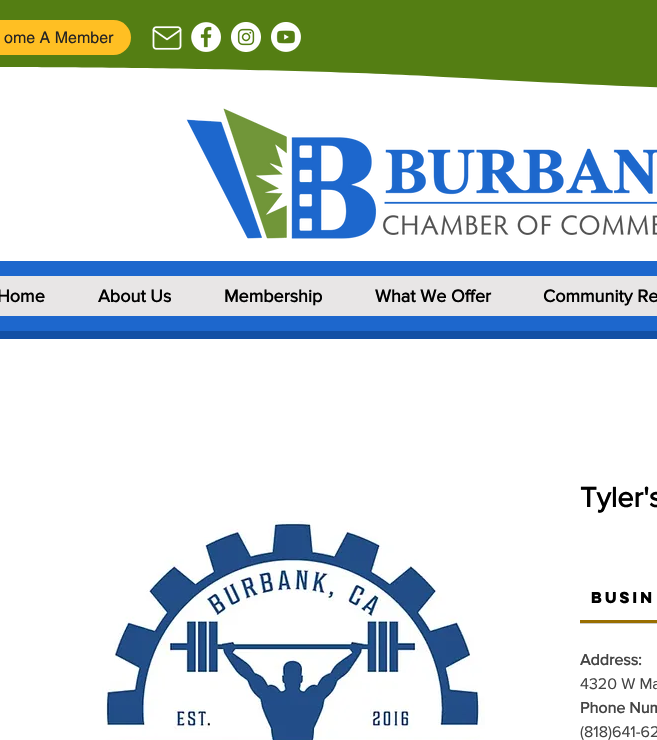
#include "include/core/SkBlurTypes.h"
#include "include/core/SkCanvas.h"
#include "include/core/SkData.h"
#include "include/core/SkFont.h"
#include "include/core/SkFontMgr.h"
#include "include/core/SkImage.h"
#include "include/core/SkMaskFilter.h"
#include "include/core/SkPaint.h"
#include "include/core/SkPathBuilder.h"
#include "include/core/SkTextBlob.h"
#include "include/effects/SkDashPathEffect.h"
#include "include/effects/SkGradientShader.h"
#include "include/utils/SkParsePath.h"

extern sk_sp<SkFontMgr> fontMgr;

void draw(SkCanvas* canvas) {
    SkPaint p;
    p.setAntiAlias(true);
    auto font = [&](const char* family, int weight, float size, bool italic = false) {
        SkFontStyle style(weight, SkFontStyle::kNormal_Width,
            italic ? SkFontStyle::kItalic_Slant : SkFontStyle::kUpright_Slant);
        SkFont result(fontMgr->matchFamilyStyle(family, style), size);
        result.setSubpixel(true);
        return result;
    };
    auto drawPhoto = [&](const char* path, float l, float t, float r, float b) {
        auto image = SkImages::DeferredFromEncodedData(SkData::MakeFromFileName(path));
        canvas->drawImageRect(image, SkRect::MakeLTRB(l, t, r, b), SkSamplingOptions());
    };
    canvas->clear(0xFFFFFFFF);
    p.setColor(0xFF547E13);
    canvas->drawRect(SkRect::MakeLTRB(0, 0, 657, 88), p);
    p.setColor(0xFFFFBF23);
    canvas->drawRoundRect(SkRect::MakeLTRB(-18, 20, 131, 55), 17.5f, 17.5f, p);
    auto font1 = font("helvetica", 400, 16);
    p.setColor(0xFF242323);
    canvas->drawString("ome A Member", 4, 43, font1, p);
    drawPhoto("media/1.png", 152, 26, 182, 50);
    drawPhoto("media/2.png", 191, 22, 221, 52);
    drawPhoto("media/3.png", 231, 22, 261, 52);
    drawPhoto("media/4.png", 271, 22, 301, 52);
    p.setColor(0xFFFFFFFF);
    canvas->drawPath(SkPathBuilder().moveTo(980, 94).lineTo(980, 93).cubicTo(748, 93, 627, 87, 427, 76).cubicTo(250, 67, 0, 67, 0, 67).lineTo(0, 94).close().detach(), p);
    drawPhoto("media/5.png", 186, 108, 657, 239);
    p.setColor(0xFF1D67CD);
    canvas->drawRect(SkRect::MakeLTRB(0, 261, 657, 331), p);
    p.setColor(0xFFE8E6E6);
    canvas->drawRect(SkRect::MakeLTRB(0, 276, 657, 316), p);
    auto font2 = font("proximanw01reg", 700, 18);
    p.setColor(0xFF000000);
    {
        const struct { const char* s; float x, y; } items[] = {
            {"Home", -3, 302},
            {"About Us", 98, 302},
            {"Membership", 224, 302},
            {"What We Offer", 375, 302},
            {"Community Re", 543, 302},
        };
        for (auto [s, x, y] : items) {
            canvas->drawString(s, x, y, font2, p);
        }
    }
    p.setColor(0xFF1350A5);
    canvas->drawRect(SkRect::MakeLTRB(0, 331, 657, 339), p);
    drawPhoto("media/6.png", 102, 521, 485, 740);
    auto font3 = font("proximanw01reg", 700, 29);
    p.setColor(0xFF000000);
    canvas->drawString("Tyler's", 580, 507, font3, p);
    p.setColor(0xFFCCCCCC);
    canvas->drawRect(SkRect::MakeLTRB(580, 623, 657, 624), p);
    p.setColor(0xFF996E00);
    canvas->drawRect(SkRect::MakeLTRB(580, 620, 657, 623), p);
    auto font4 = font("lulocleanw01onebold", 700, 14);
    p.setColor(0xFF000000);
    canvas->drawString("Busin", 591, 603, font4, p);
    auto font5 = font("proximanw01reg", 700, 16);
    p.setColor(0xFF444444);
    canvas->drawString("Address:", 580, 665, font5, p);
    auto font6 = font("proximanw01reg", 400, 16);
    canvas->drawString("4320 W Ma", 580, 689, font6, p);
    canvas->drawString("Phone Num", 580, 713, font5, p);
    canvas->drawString("(818)641-62", 580, 737, font6, p);
}
